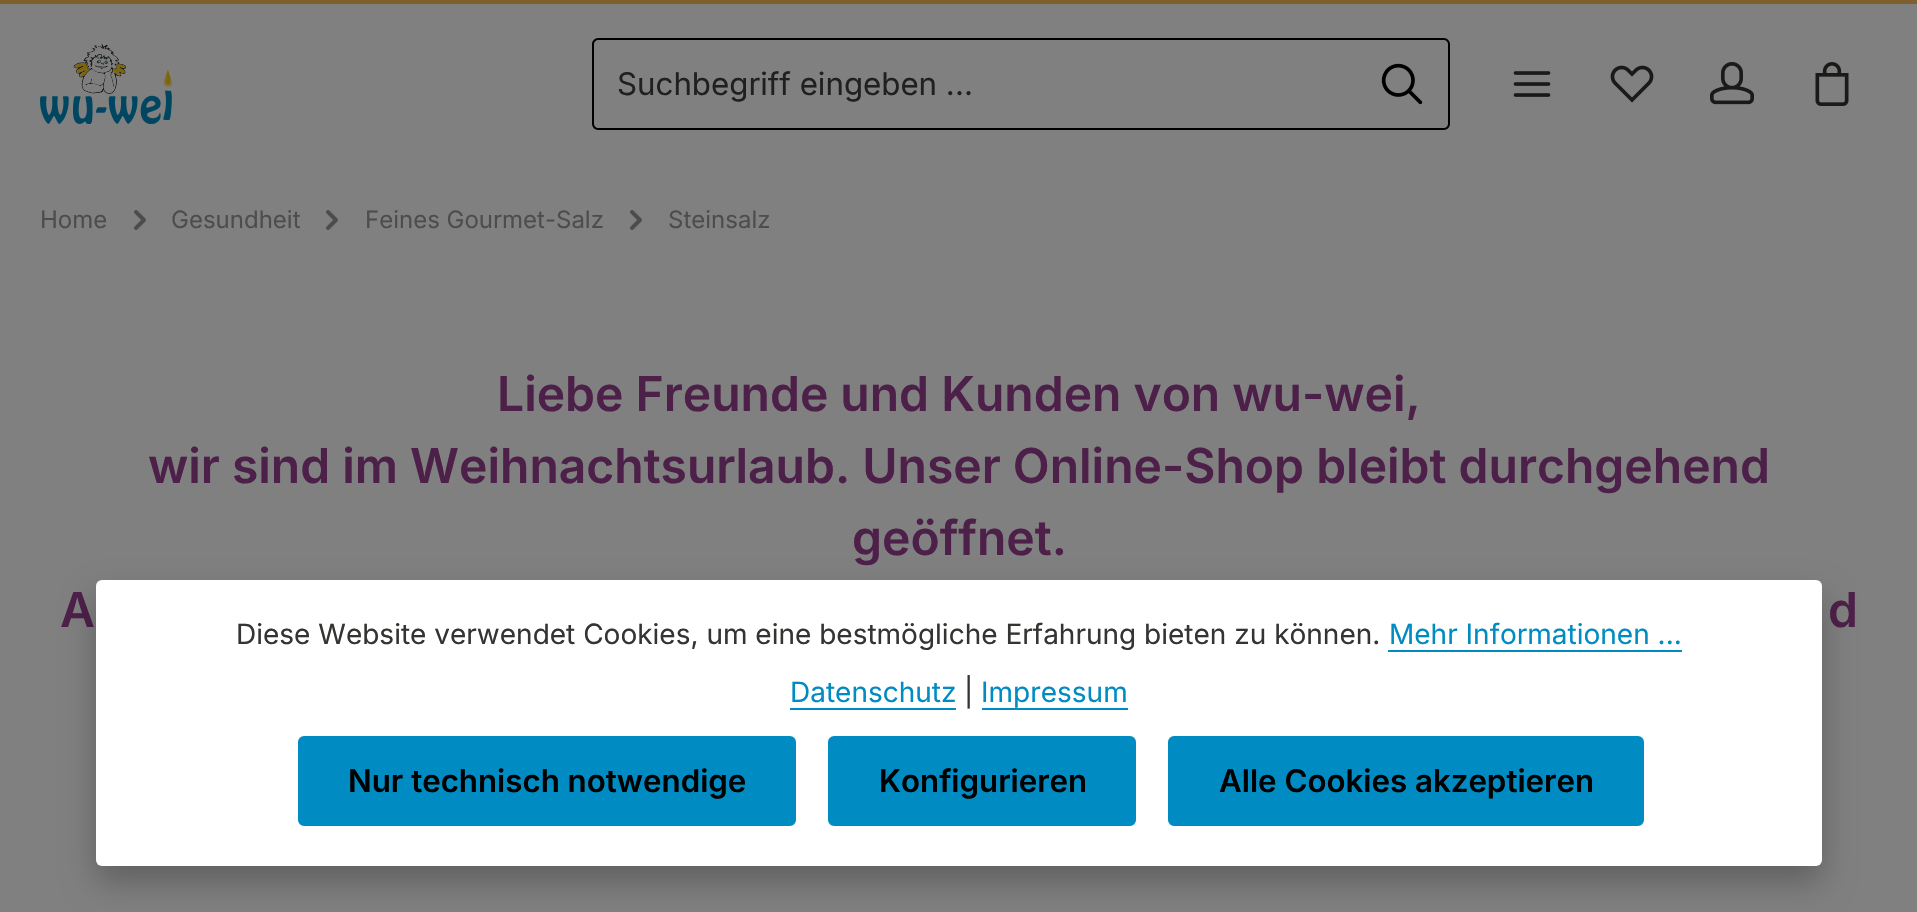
#include "include/core/SkBlurTypes.h"
#include "include/core/SkCanvas.h"
#include "include/core/SkData.h"
#include "include/core/SkFont.h"
#include "include/core/SkFontMgr.h"
#include "include/core/SkImage.h"
#include "include/core/SkMaskFilter.h"
#include "include/core/SkPaint.h"
#include "include/core/SkPathBuilder.h"
#include "include/core/SkTextBlob.h"
#include "include/effects/SkDashPathEffect.h"
#include "include/effects/SkGradientShader.h"
#include "include/utils/SkParsePath.h"

extern sk_sp<SkFontMgr> fontMgr;

void draw(SkCanvas* canvas) {
    SkPaint p;
    p.setAntiAlias(true);
    auto font = [&](const char* family, int weight, float size, bool italic = false) {
        SkFontStyle style(weight, SkFontStyle::kNormal_Width,
            italic ? SkFontStyle::kItalic_Slant : SkFontStyle::kUpright_Slant);
        SkFont result(fontMgr->matchFamilyStyle(family, style), size);
        result.setSubpixel(true);
        return result;
    };
    auto drawPhoto = [&](const char* path, float l, float t, float r, float b) {
        auto image = SkImages::DeferredFromEncodedData(SkData::MakeFromFileName(path));
        canvas->drawImageRect(image, SkRect::MakeLTRB(l, t, r, b), SkSamplingOptions());
    };
    canvas->clear(0xFF808080);
    p.setColor(0xFF805F2F);
    canvas->drawRect(SkRect::MakeLTRB(0, 0, 1917, 4), p);
    drawPhoto("media/1.png", 40, 44, 172, 124);
    p.setColor(0xFF000000);
    canvas->drawPath(SkPathBuilder(SkPathFillType::kEvenOdd).moveTo(598, 38).lineTo(1358, 38).lineTo(1358, 130).lineTo(598, 130).cubicTo(595, 130, 592, 127, 592, 124).lineTo(592, 44).cubicTo(592, 41, 595, 38, 598, 38).close().moveTo(598, 40).lineTo(1358, 40).lineTo(1358, 128).lineTo(598, 128).cubicTo(596, 128, 594, 126, 594, 124).lineTo(594, 44).cubicTo(594, 42, 596, 40, 598, 40).close().detach(), p);
    auto font1 = font("Inter", 400, 31.25f);
    p.setColor(0xFF202020);
    canvas->drawString("Suchbegriff eingeben ...", 617, 95, font1, p);
    p.setColor(0xFF808080);
    canvas->drawPath(SkPathBuilder().moveTo(1356, 38).lineTo(1444, 38).cubicTo(1447.5f, 38, 1450, 40.5f, 1450, 44).lineTo(1450, 124).cubicTo(1450, 127.5f, 1447.5f, 130, 1444, 130).lineTo(1356, 130).close().detach(), p);
    p.setColor(0xFF000000);
    canvas->drawPath(SkPathBuilder(SkPathFillType::kEvenOdd).moveTo(1356, 38).lineTo(1444, 38).cubicTo(1447, 38, 1450, 41, 1450, 44).lineTo(1450, 124).cubicTo(1450, 127, 1447, 130, 1444, 130).lineTo(1356, 130).close().moveTo(1356, 40).lineTo(1444, 40).cubicTo(1446, 40, 1448, 42, 1448, 44).lineTo(1448, 124).cubicTo(1448, 126, 1446, 128, 1444, 128).lineTo(1356, 128).close().detach(), p);
    drawPhoto("media/2.png", 1381, 63, 1423, 105);
    drawPhoto("media/3.png", 1513, 71, 1551, 97);
    drawPhoto("media/4.png", 1610, 65, 1654, 103);
    drawPhoto("media/5.png", 1710, 62, 1754, 105);
    drawPhoto("media/6.png", 1815, 62, 1849, 106);
    auto font2 = font("Inter", 400, 24);
    p.setColor(0xFF4D4D4D);
    canvas->drawString("Home", 40, 228, font2, p);
    drawPhoto("media/7.png", 134, 210, 146, 230);
    canvas->drawString("Gesundheit", 171, 228, font2, p);
    drawPhoto("media/7.png", 326, 210, 338, 230);
    canvas->drawString("Feines Gourmet-Salz", 365, 228, font2, p);
    drawPhoto("media/7.png", 630, 210, 642, 230);
    canvas->drawString("Steinsalz", 668, 228, font2, p);
    auto font3 = font("Inter", 600, 48);
    p.setColor(0xFF4D2049);
    {
        const struct { const char* s; float x, y; } items[] = {
            {"Liebe Freunde und Kunden von wu-wei,", 497, 411},
            {"wir sind im Weihnachtsurlaub. Unser Online-Shop bleibt durchgehend", 148, 483},
            {"geöffnet.", 852, 555},
        };
        for (auto [s, x, y] : items) {
            canvas->drawString(s, x, y, font3, p);
        }
    }
    auto font4 = font("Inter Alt", 600, 48);
    canvas->drawString("A", 60, 627, font4, p);
    canvas->drawString("d", 1828, 627, font4, p);
    p.setColor(0x40000000);
    p.setMaskFilter(SkMaskFilter::MakeBlur(kNormal_SkBlurStyle, 16));
    canvas->drawRoundRect(SkRect::MakeLTRB(96, 596, 1822, 882), 6, 6, p);
    p.setMaskFilter(nullptr);
    p.setColor(0xFFFFFFFF);
    canvas->drawRoundRect(SkRect::MakeLTRB(96, 580, 1822, 866), 6, 6, p);
    auto font5 = font("Inter", 400, 28);
    p.setColor(0xFF343432);
    canvas->drawString("Diese Website verwendet Cookies, um eine bestmögliche Erfahrung bieten zu können.", 236, 644, font5, p);
    p.setColor(0xFF008CC2);
    canvas->drawString("Mehr Informationen ...", 1389, 644, font5, p);
    canvas->drawRect(SkRect::MakeLTRB(1388, 650, 1682, 652), p);
    canvas->drawString("Datenschutz", 790, 702, font5, p);
    canvas->drawRect(SkRect::MakeLTRB(790, 708, 956, 710), p);
    p.setColor(0xFF343432);
    canvas->drawString("|", 964, 702, font5, p);
    p.setColor(0xFF008CC2);
    canvas->drawString("Impressum", 981, 702, font5, p);
    canvas->drawRect(SkRect::MakeLTRB(982, 708, 1128, 710), p);
    canvas->drawRoundRect(SkRect::MakeLTRB(299, 737, 795, 825), 5, 5, p);
    p.setStyle(SkPaint::kStroke_Style);
    p.setStrokeWidth(2);
    canvas->drawRoundRect(SkRect::MakeLTRB(299, 737, 795, 825), 5, 5, p);
    auto font6 = font("Inter", 600, 31.25f);
    p.setStyle(SkPaint::kFill_Style);
    p.setColor(0xFF000000);
    canvas->drawString("Nur technisch notwendige", 348, 792, font6, p);
    p.setColor(0xFF008CC2);
    canvas->drawRoundRect(SkRect::MakeLTRB(829, 737, 1135, 825), 5, 5, p);
    p.setStyle(SkPaint::kStroke_Style);
    canvas->drawRoundRect(SkRect::MakeLTRB(829, 737, 1135, 825), 5, 5, p);
    p.setStyle(SkPaint::kFill_Style);
    p.setColor(0xFF000000);
    canvas->drawString("Konfigurieren", 879, 792, font6, p);
    p.setColor(0xFF008CC2);
    canvas->drawRoundRect(SkRect::MakeLTRB(1169, 737, 1643, 825), 5, 5, p);
    p.setStyle(SkPaint::kStroke_Style);
    canvas->drawRoundRect(SkRect::MakeLTRB(1169, 737, 1643, 825), 5, 5, p);
    p.setStyle(SkPaint::kFill_Style);
    p.setColor(0xFF000000);
    canvas->drawString("Alle Cookies akzeptieren", 1219, 792, font6, p);
}
